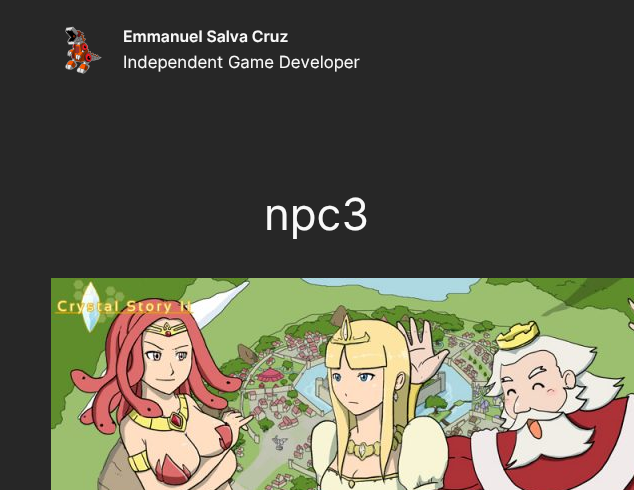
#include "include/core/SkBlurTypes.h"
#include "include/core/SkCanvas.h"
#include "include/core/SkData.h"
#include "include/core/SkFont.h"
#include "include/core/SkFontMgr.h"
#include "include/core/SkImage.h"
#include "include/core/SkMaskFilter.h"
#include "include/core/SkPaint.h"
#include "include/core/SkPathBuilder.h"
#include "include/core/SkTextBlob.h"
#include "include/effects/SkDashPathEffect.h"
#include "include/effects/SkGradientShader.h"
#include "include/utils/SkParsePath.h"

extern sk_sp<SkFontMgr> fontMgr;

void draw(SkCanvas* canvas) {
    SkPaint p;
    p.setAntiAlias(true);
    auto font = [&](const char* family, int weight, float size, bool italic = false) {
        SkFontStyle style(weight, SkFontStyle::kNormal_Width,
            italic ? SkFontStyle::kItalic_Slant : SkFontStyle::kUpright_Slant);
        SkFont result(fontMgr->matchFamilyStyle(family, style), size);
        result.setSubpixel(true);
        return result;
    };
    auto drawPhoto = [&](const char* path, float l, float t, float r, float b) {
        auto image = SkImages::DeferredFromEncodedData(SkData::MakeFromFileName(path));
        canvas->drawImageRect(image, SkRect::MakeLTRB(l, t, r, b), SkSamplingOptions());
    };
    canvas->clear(0xFF272727);
    drawPhoto("media/1.png", 65, 26, 102, 74);
    auto font1 = font("Inter", 600, 15.75f);
    p.setColor(0xFFF9F9F9);
    canvas->drawString("Emmanuel Salva Cruz", 123, 42, font1, p);
    auto font2 = font("Inter", 400, 16.75f);
    canvas->drawString("Independent Game Developer", 123, 68, font2, p);
    auto font3 = font("Inter", 400, 44);
    canvas->drawString("npc3", 264, 230, font3, p);
    drawPhoto("media/2.png", 51, 278, 634, 490);
}
